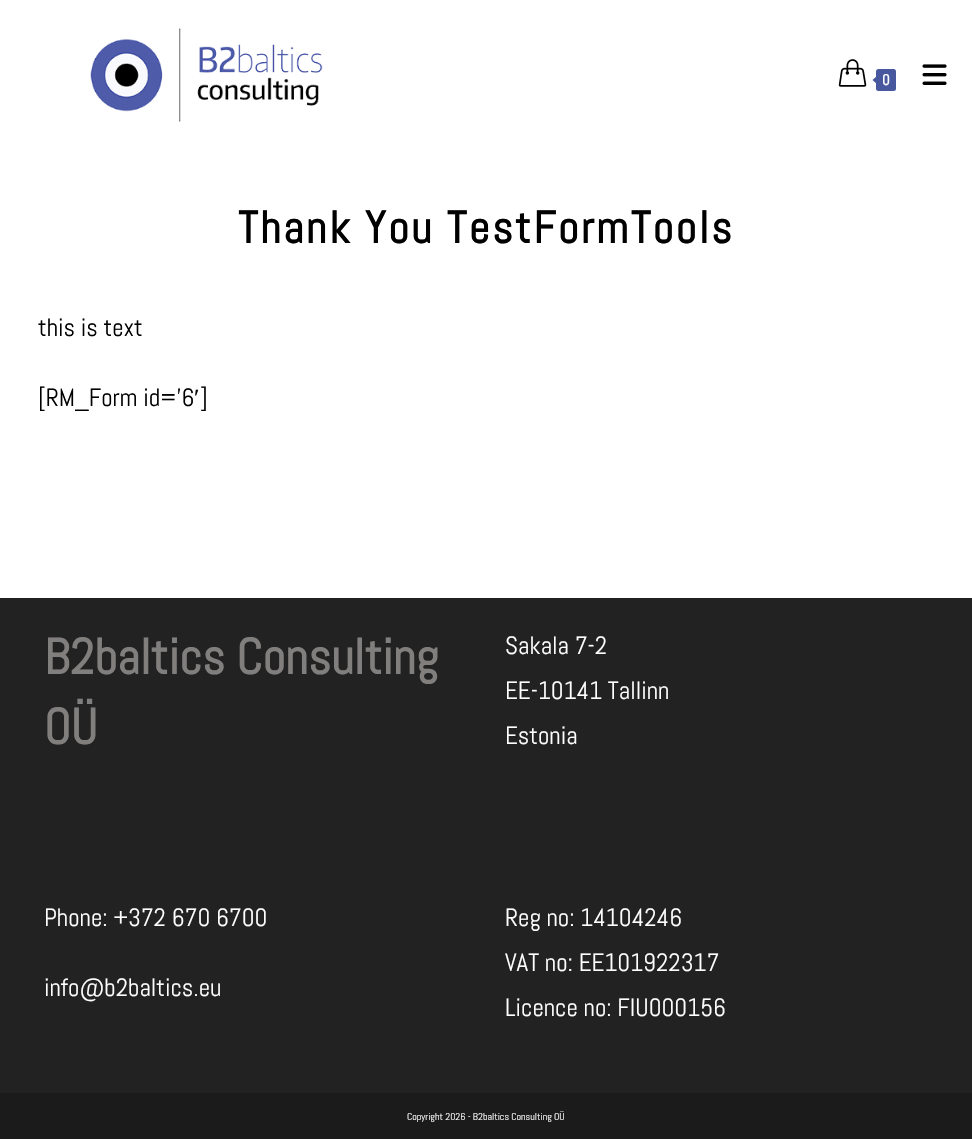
#include "include/core/SkBlurTypes.h"
#include "include/core/SkCanvas.h"
#include "include/core/SkData.h"
#include "include/core/SkFont.h"
#include "include/core/SkFontMgr.h"
#include "include/core/SkImage.h"
#include "include/core/SkMaskFilter.h"
#include "include/core/SkPaint.h"
#include "include/core/SkPathBuilder.h"
#include "include/core/SkTextBlob.h"
#include "include/effects/SkDashPathEffect.h"
#include "include/effects/SkGradientShader.h"
#include "include/utils/SkParsePath.h"

extern sk_sp<SkFontMgr> fontMgr;

void draw(SkCanvas* canvas) {
    SkPaint p;
    p.setAntiAlias(true);
    auto font = [&](const char* family, int weight, float size, bool italic = false) {
        SkFontStyle style(weight, SkFontStyle::kNormal_Width,
            italic ? SkFontStyle::kItalic_Slant : SkFontStyle::kUpright_Slant);
        SkFont result(fontMgr->matchFamilyStyle(family, style), size);
        result.setSubpixel(true);
        return result;
    };
    auto drawTracked = [&](const char* s, float x, float y, const SkFont& font, const SkPaint& ink, float letter, float word) {
        std::vector<SkGlyphID> glyphs(font.countText(s, strlen(s), SkTextEncoding::kUTF8));
        std::vector<float> xs(glyphs.size());
        font.textToGlyphs(s, strlen(s), SkTextEncoding::kUTF8, glyphs);
        font.getXPos(glyphs, xs, x);
        float extra = 0;
        for (size_t i = 0; i < glyphs.size(); i++) {
            xs[i] += extra;
            extra += letter + word * (glyphs[i] == font.unicharToGlyph(' '));
        }
        canvas->drawTextBlob(SkTextBlob::MakeFromPosHGlyphs(glyphs, xs, y, font), 0, 0, ink);
    };
    auto drawPhoto = [&](const char* path, float l, float t, float r, float b) {
        auto image = SkImages::DeferredFromEncodedData(SkData::MakeFromFileName(path));
        canvas->drawImageRect(image, SkRect::MakeLTRB(l, t, r, b), SkSamplingOptions());
    };
    canvas->clear(0xFFFFFFFF);
    drawPhoto("media/1.png", 90, 28, 323, 122);
    drawPhoto("media/2.png", 838, 59, 867, 87);
    p.setColor(0xFF48589E);
    canvas->drawRoundRect(SkRect::MakeLTRB(876, 69, 896, 91), 2.5f, 2.5f, p);
    canvas->drawPath(SkPathBuilder().moveTo(879, 74).lineTo(879, 86).lineTo(872.5f, 80).close().detach(), p);
    auto font1 = font("Abel", 700, 15);
    p.setColor(0xFFFFFFFF);
    drawTracked("0", 882, 85, font1, p, 1, 0);
    drawPhoto("media/3.png", 922, 64, 947, 85);
    auto font2 = font("Abel", 700, 45);
    p.setColor(0xFF000000);
    drawTracked("Thank You TestFormTools", 238, 243, font2, p, 2.5f, 0);
    auto font3 = font("Abel", 400, 25);
    canvas->drawString("this is text", 38, 336, font3, p);
    canvas->drawString("[RM_Form id=’6 ]", 38, 406, font3, p);
    auto font4 = font("Liberation Serif", 400, 25);
    canvas->drawString("′", 194, 406, font4, p);
    p.setColor(0xFF222222);
    canvas->drawRect(SkRect::MakeLTRB(0, 598, 972, 1093), p);
    auto font5 = font("Abel", 700, 50);
    p.setColor(0xFF817E7E);
    canvas->drawString("B2baltics Consulting", 44, 674, font5, p);
    canvas->drawString("OÜ", 44, 744, font5, p);
    p.setColor(0xFFFFFFFF);
    {
        const struct { const char* s; float x, y; } items[] = {
            {"Sakala 7-2", 505, 654},
            {"EE-10141 Tallinn", 505, 699},
            {"Estonia", 505, 744},
            {"Phone: +372 670 6700", 44, 926},
            {"info@b2baltics.eu", 44, 996},
            {"Reg no: 14104246", 505, 926},
            {"VAT no: EE101922317", 505, 971},
            {"Licence no: FIU000156", 505, 1016},
        };
        for (auto [s, x, y] : items) {
            canvas->drawString(s, x, y, font3, p);
        }
    }
    p.setColor(0xFF1B1B1B);
    canvas->drawRect(SkRect::MakeLTRB(0, 1093, 972, 1139), p);
    auto font6 = font("Abel", 400, 10);
    p.setColor(0xFFFFFFFF);
    canvas->drawString("Copyright 2026 - B2baltics Consulting OÜ", 407, 1120, font6, p);
}
